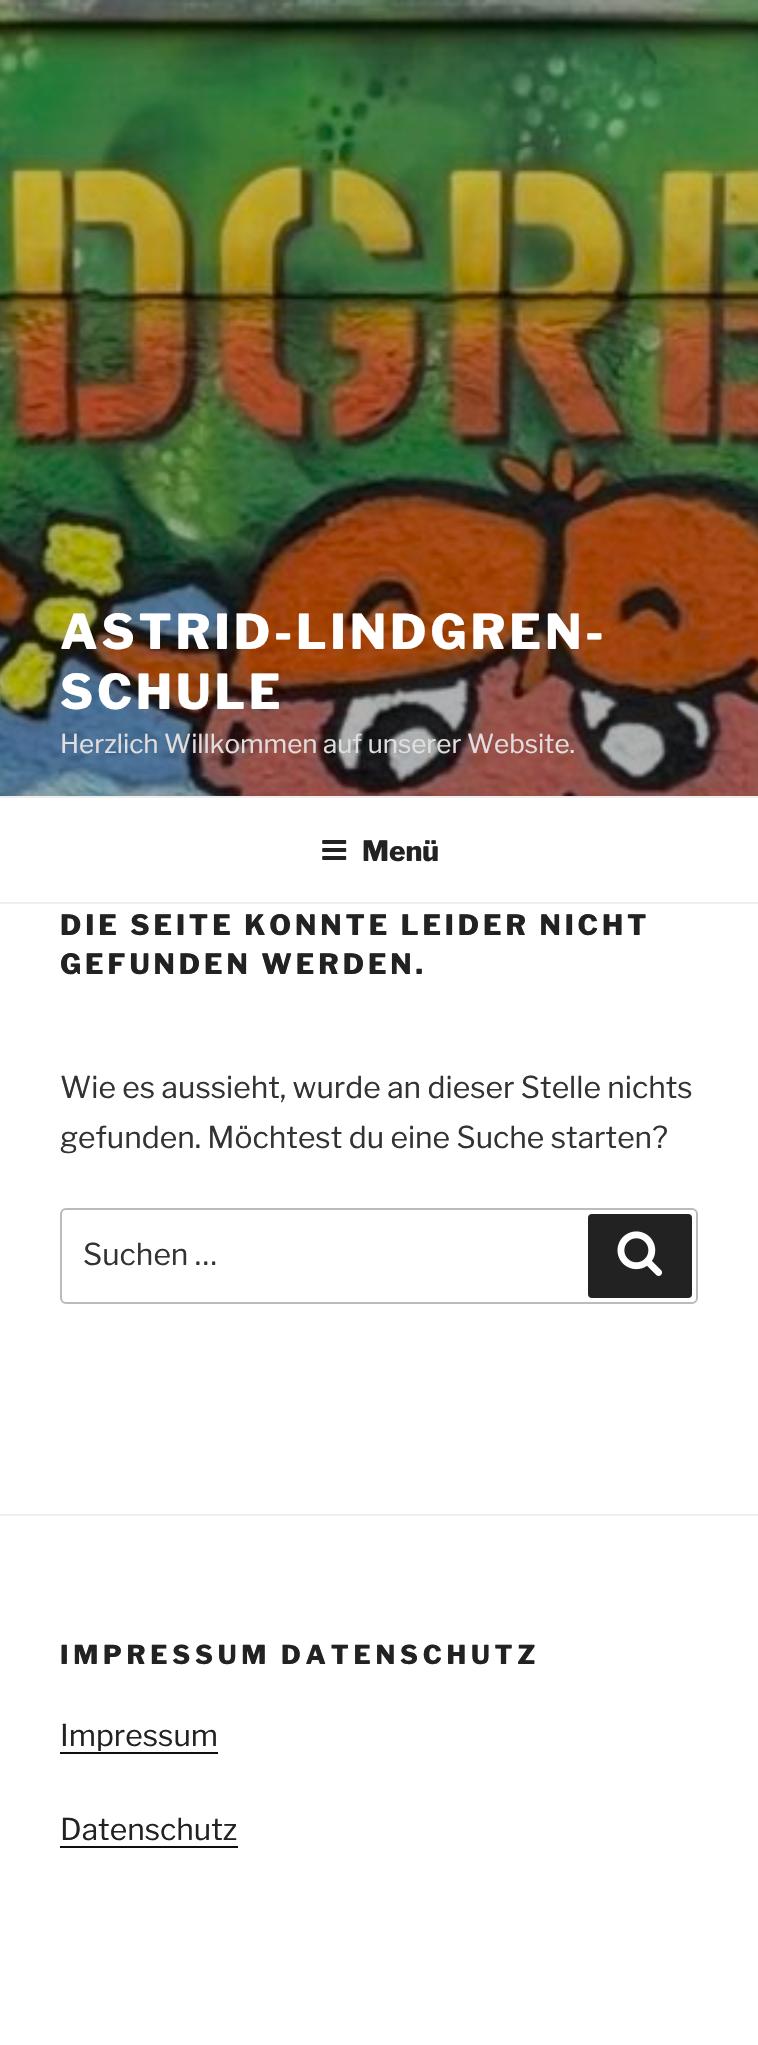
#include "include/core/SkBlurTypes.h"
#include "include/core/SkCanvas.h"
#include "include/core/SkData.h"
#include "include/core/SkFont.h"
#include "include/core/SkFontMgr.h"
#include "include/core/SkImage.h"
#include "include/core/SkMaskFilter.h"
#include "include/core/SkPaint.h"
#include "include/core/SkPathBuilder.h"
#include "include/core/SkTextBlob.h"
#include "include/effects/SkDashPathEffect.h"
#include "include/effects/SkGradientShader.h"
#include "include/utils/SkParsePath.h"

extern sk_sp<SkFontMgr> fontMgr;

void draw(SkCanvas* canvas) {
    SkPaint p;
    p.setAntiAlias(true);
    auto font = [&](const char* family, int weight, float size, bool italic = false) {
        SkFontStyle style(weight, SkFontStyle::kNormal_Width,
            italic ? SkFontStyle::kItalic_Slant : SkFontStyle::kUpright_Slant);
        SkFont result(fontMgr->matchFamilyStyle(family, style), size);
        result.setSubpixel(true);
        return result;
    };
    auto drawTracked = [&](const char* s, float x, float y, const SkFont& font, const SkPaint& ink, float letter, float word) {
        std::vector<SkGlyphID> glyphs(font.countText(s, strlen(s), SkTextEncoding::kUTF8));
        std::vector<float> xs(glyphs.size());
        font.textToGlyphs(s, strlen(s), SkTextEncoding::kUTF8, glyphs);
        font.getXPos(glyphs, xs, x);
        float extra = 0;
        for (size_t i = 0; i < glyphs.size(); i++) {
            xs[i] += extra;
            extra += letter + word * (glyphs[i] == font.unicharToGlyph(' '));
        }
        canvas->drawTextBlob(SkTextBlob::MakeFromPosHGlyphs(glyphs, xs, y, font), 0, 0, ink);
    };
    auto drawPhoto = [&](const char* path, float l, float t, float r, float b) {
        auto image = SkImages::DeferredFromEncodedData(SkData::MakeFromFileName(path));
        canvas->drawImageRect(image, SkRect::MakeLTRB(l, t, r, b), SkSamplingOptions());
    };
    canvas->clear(0xFFFFFFFF);
    drawPhoto("media/1.png", 0, 0, 758, 796);
    auto font1 = font("Libre Franklin", 100, 48);
    p.setColor(0xFFFFFFFF);
    drawTracked("ASTRID-LINDGREN-", 60, 649, font1, p, 3.8f, 0);
    drawTracked("SCHULE", 60, 709, font1, p, 3.8f, 0);
    auto font2 = font("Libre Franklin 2", 100, 26);
    p.setColor(0xFFE2DEDF);
    canvas->drawString("Herzlich Willkommen auf unserer Website.", 60, 753, font2, p);
    p.setColor(0xFFEEEEEE);
    canvas->drawRect(SkRect::MakeLTRB(0, 796, 758, 798), p);
    canvas->drawRect(SkRect::MakeLTRB(0, 902, 758, 904), p);
    drawPhoto("media/2.png", 322, 840, 347, 860);
    auto font3 = font("Libre Franklin", 100, 28);
    p.setColor(0xFF222222);
    canvas->drawString("Menü", 362, 861, font3, p);
    drawTracked("DIE SEITE KONNTE LEIDER NICHT", 60, 935, font3, p, 3.9f, 0);
    drawTracked("GEFUNDEN WERDEN.", 60, 974, font3, p, 3.9f, 0);
    auto font4 = font("Libre Franklin 2", 100, 30);
    p.setColor(0xFF333333);
    canvas->drawString("Wie es aussieht, wurde an dieser Stelle nichts", 60, 1098, font4, p);
    canvas->drawString("gefunden. Möchtest du eine Suche starten?", 60, 1148, font4, p);
    p.setStyle(SkPaint::kStroke_Style);
    p.setStrokeWidth(2);
    p.setColor(0xFFBBBBBB);
    canvas->drawRoundRect(SkRect::MakeLTRB(61, 1209, 697, 1303), 5, 5, p);
    p.setStyle(SkPaint::kFill_Style);
    p.setColor(0xFF333333);
    canvas->drawString("Suchen …", 83, 1265, font4, p);
    p.setColor(0xFF222222);
    canvas->drawRoundRect(SkRect::MakeLTRB(588, 1214, 692, 1298), 4, 4, p);
    drawPhoto("media/3.png", 617, 1231, 663, 1276);
    p.setColor(0xFFEEEEEE);
    canvas->drawRect(SkRect::MakeLTRB(0, 1514, 758, 1516), p);
    auto font5 = font("Libre Franklin", 100, 26);
    p.setColor(0xFF222222);
    drawTracked("IMPRESSUM DATENSCHUTZ", 60, 1664, font5, p, 4.75f, 0);
    canvas->drawString("Impressum", 60, 1746, font4, p);
    p.setColor(0xFF0F0F0F);
    canvas->drawRect(SkRect::MakeLTRB(60, 1752, 218, 1754), p);
    p.setColor(0xFF222222);
    canvas->drawString("Datenschutz", 60, 1840, font4, p);
    p.setColor(0xFF0F0F0F);
    canvas->drawRect(SkRect::MakeLTRB(60, 1846, 238, 1848), p);
}
